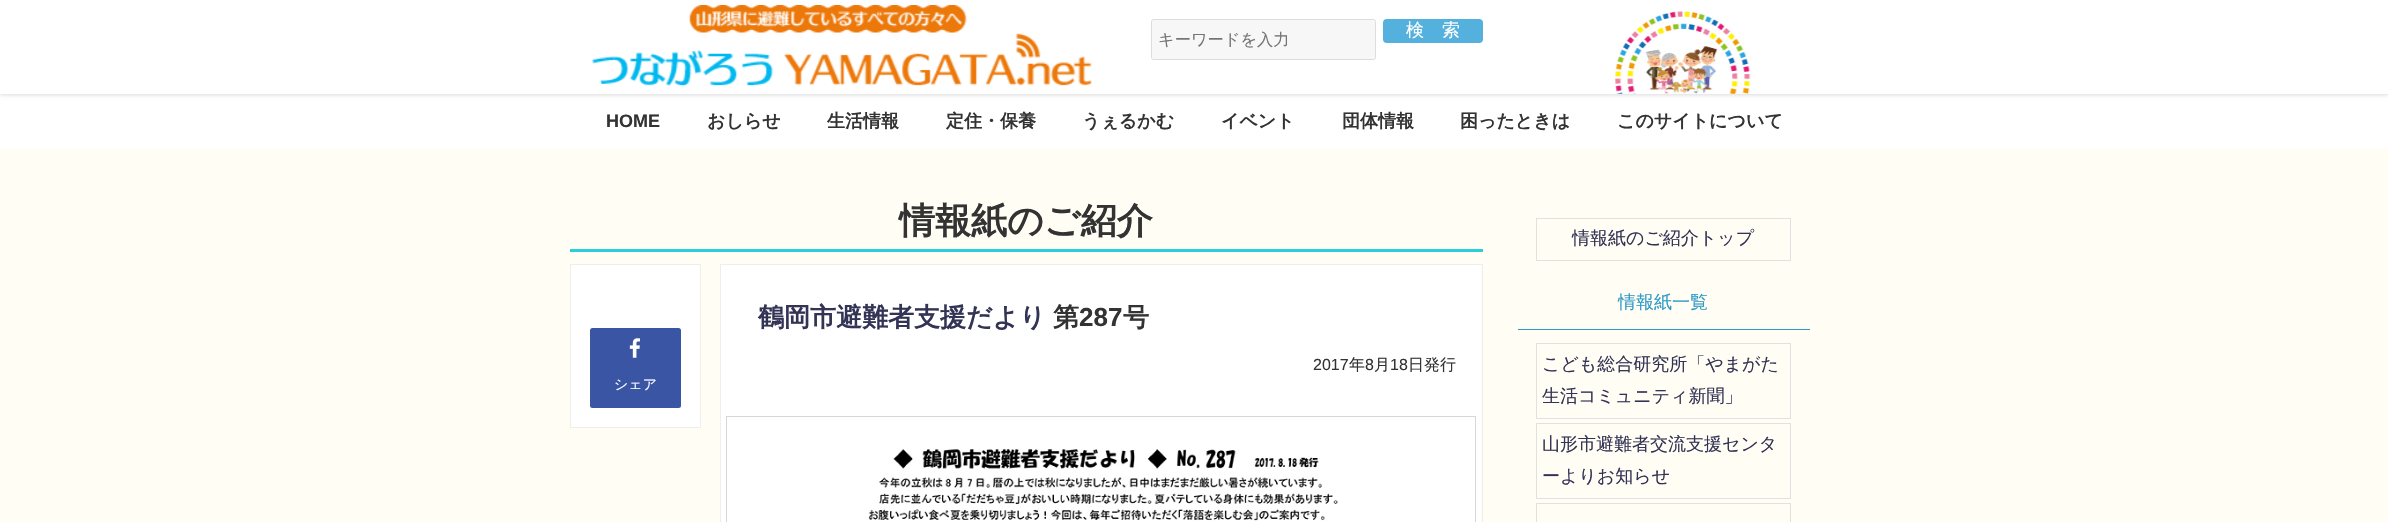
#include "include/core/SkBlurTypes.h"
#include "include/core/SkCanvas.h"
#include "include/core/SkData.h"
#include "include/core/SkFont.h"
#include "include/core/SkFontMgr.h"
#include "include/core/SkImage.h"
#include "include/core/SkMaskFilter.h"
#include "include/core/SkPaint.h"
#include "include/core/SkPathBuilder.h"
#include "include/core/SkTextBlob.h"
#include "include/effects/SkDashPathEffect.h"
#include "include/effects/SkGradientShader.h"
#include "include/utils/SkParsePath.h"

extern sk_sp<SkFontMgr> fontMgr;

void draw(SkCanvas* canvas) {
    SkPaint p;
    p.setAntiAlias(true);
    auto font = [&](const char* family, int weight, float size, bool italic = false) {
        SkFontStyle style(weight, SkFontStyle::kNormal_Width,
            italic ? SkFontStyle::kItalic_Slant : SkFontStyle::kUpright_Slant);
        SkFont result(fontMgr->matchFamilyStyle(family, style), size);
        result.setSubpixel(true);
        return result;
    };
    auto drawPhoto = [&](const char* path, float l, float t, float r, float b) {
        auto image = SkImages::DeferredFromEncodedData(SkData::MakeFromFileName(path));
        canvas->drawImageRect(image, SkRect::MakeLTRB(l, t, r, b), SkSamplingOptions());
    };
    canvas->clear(0xFFFFFDF4);
    p.setColor(0xFFFFFFFF);
    canvas->drawRect(SkRect::MakeLTRB(0, 94, 2388, 148), p);
    p.setColor(0x33000000);
    p.setMaskFilter(SkMaskFilter::MakeBlur(kNormal_SkBlurStyle, 2.5f));
    canvas->drawRect(SkRect::MakeLTRB(0, 0, 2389, 94), p);
    p.setMaskFilter(nullptr);
    p.setColor(0xFFFFFFFF);
    canvas->drawRect(SkRect::MakeLTRB(0, 0, 2388, 94), p);
    drawPhoto("media/1.png", 592, 5, 1092, 87);
    drawPhoto("media/2.png", 1615, 11, 1751, 94);
    p.setColor(0xFFF7F7F7);
    canvas->drawRoundRect(SkRect::MakeLTRB(1151.5f, 19.5f, 1375.5f, 59.5f), 2, 2, p);
    p.setStyle(SkPaint::kStroke_Style);
    p.setStrokeWidth(1);
    p.setColor(0xFFDDDDDD);
    canvas->drawRoundRect(SkRect::MakeLTRB(1151.5f, 19.5f, 1375.5f, 59.5f), 2, 2, p);
    auto font1 = font("WenQuanYi Zen Hei", 500, 16.25f);
    p.setStyle(SkPaint::kFill_Style);
    p.setColor(0xFF757575);
    canvas->drawString("キーワードを入力", 1158, 45, font1, p);
    p.setColor(0xFF54B0DC);
    canvas->drawRoundRect(SkRect::MakeLTRB(1383, 19, 1483, 43), 4, 4, p);
    auto font2 = font("WenQuanYi Zen Hei", 500, 18);
    p.setColor(0xFFFFFFFF);
    canvas->drawString("検　索", 1406, 36, font2, p);
    auto font3 = font("Liberation Sans", 700, 18);
    p.setColor(0xFF333333);
    canvas->drawString("HOME", 606, 127, font3, p);
    auto font4 = font("WenQuanYi Zen Hei", 700, 18);
    {
        const struct { const char* s; float x, y; } items[] = {
            {"おしらせ", 707, 127},
            {"生活情報", 827, 127},
            {"定住・保養", 946, 127},
            {"うぇるかむ", 1082, 127},
            {"イベント", 1221, 127},
            {"団体情報", 1342, 127},
            {"困ったときは", 1460, 127},
            {"このサイトについて", 1617, 127},
        };
        for (auto [s, x, y] : items) {
            canvas->drawString(s, x, y, font4, p);
        }
    }
    p.setColor(0xFF27D1D9);
    canvas->drawRect(SkRect::MakeLTRB(570, 249, 1483, 252), p);
    auto font5 = font("WenQuanYi Zen Hei", 700, 36);
    p.setColor(0xFF333333);
    canvas->drawString("情報紙のご紹介", 899, 233, font5, p);
    p.setStyle(SkPaint::kStroke_Style);
    p.setColor(0xFFEEEEEE);
    canvas->drawRect(SkRect::MakeLTRB(720.5f, 264.5f, 1482.5f, 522.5f), p);
    p.setStyle(SkPaint::kFill_Style);
    p.setColor(0xFFFFFFFF);
    canvas->drawRect(SkRect::MakeLTRB(721, 265, 1481, 522), p);
    auto font6 = font("WenQuanYi Zen Hei", 700, 26);
    p.setColor(0xFF333355);
    canvas->drawString("鶴岡市避難者支援だより", 758, 326, font6, p);
    p.setColor(0xFF333333);
    canvas->drawString("第", 1053, 326, font6, p);
    auto font7 = font("Liberation Sans", 700, 26);
    canvas->drawString("287", 1079, 326, font7, p);
    canvas->drawString("号", 1123, 326, font6, p);
    auto font8 = font("Liberation Sans", 400, 16);
    canvas->drawString("2017", 1313, 370, font8, p);
    auto font9 = font("WenQuanYi Zen Hei", 500, 16);
    canvas->drawString("年", 1349, 370, font9, p);
    canvas->drawString("8", 1365, 370, font8, p);
    canvas->drawString("月", 1374, 370, font9, p);
    canvas->drawString("18", 1390, 370, font8, p);
    canvas->drawString("日発行", 1408, 370, font9, p);
    p.setStyle(SkPaint::kStroke_Style);
    p.setColor(0xFFD7D7D7);
    canvas->drawRect(SkRect::MakeLTRB(726.5f, 416.5f, 1475.5f, 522.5f), p);
    drawPhoto("media/3.png", 868, 449, 1338, 521);
    p.setStyle(SkPaint::kFill_Style);
    p.setColor(0xFFFFFFFF);
    canvas->drawRect(SkRect::MakeLTRB(570.5f, 264.5f, 700.5f, 427.5f), p);
    p.setStyle(SkPaint::kStroke_Style);
    p.setColor(0xFFEEEEEE);
    canvas->drawRect(SkRect::MakeLTRB(570.5f, 264.5f, 700.5f, 427.5f), p);
    p.setStyle(SkPaint::kFill_Style);
    p.setColor(0xFF3B55A5);
    canvas->drawRoundRect(SkRect::MakeLTRB(590, 328, 681, 408), 2.5f, 2.5f, p);
    drawPhoto("media/4.png", 629, 338, 640, 358);
    auto font10 = font("WenQuanYi Zen Hei", 500, 14);
    p.setColor(0xFFFFFFFF);
    canvas->drawString("シェア", 614, 389, font10, p);
    p.setStyle(SkPaint::kStroke_Style);
    p.setColor(0xFFE1E1E1);
    canvas->drawRect(SkRect::MakeLTRB(1536.5f, 218.5f, 1790.5f, 260.5f), p);
    p.setStyle(SkPaint::kFill_Style);
    p.setColor(0xFF333355);
    canvas->drawString("情報紙のご紹介トップ", 1572, 244, font2, p);
    p.setColor(0xFF2E9AC8);
    canvas->drawRect(SkRect::MakeLTRB(1518, 329, 1810, 330), p);
    canvas->drawString("情報紙一覧", 1618, 308, font2, p);
    p.setStyle(SkPaint::kStroke_Style);
    p.setColor(0xFFE1E1E1);
    canvas->drawRect(SkRect::MakeLTRB(1536.5f, 343.5f, 1790.5f, 418.5f), p);
    p.setStyle(SkPaint::kFill_Style);
    p.setColor(0xFF333355);
    canvas->drawString("こども総合研究所「やまがた", 1542, 370, font2, p);
    canvas->drawString("生活コミュニティ新聞」", 1542, 402, font2, p);
    p.setStyle(SkPaint::kStroke_Style);
    p.setColor(0xFFE1E1E1);
    canvas->drawRect(SkRect::MakeLTRB(1536.5f, 423.5f, 1790.5f, 498.5f), p);
    p.setStyle(SkPaint::kFill_Style);
    p.setColor(0xFF333355);
    canvas->drawString("山形市避難者交流支援センタ", 1542, 450, font2, p);
    canvas->drawString("ーよりお知らせ", 1542, 482, font2, p);
    p.setStyle(SkPaint::kStroke_Style);
    p.setColor(0xFFE1E1E1);
    canvas->drawRect(SkRect::MakeLTRB(1536.5f, 503.5f, 1790.5f, 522.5f), p);
}
